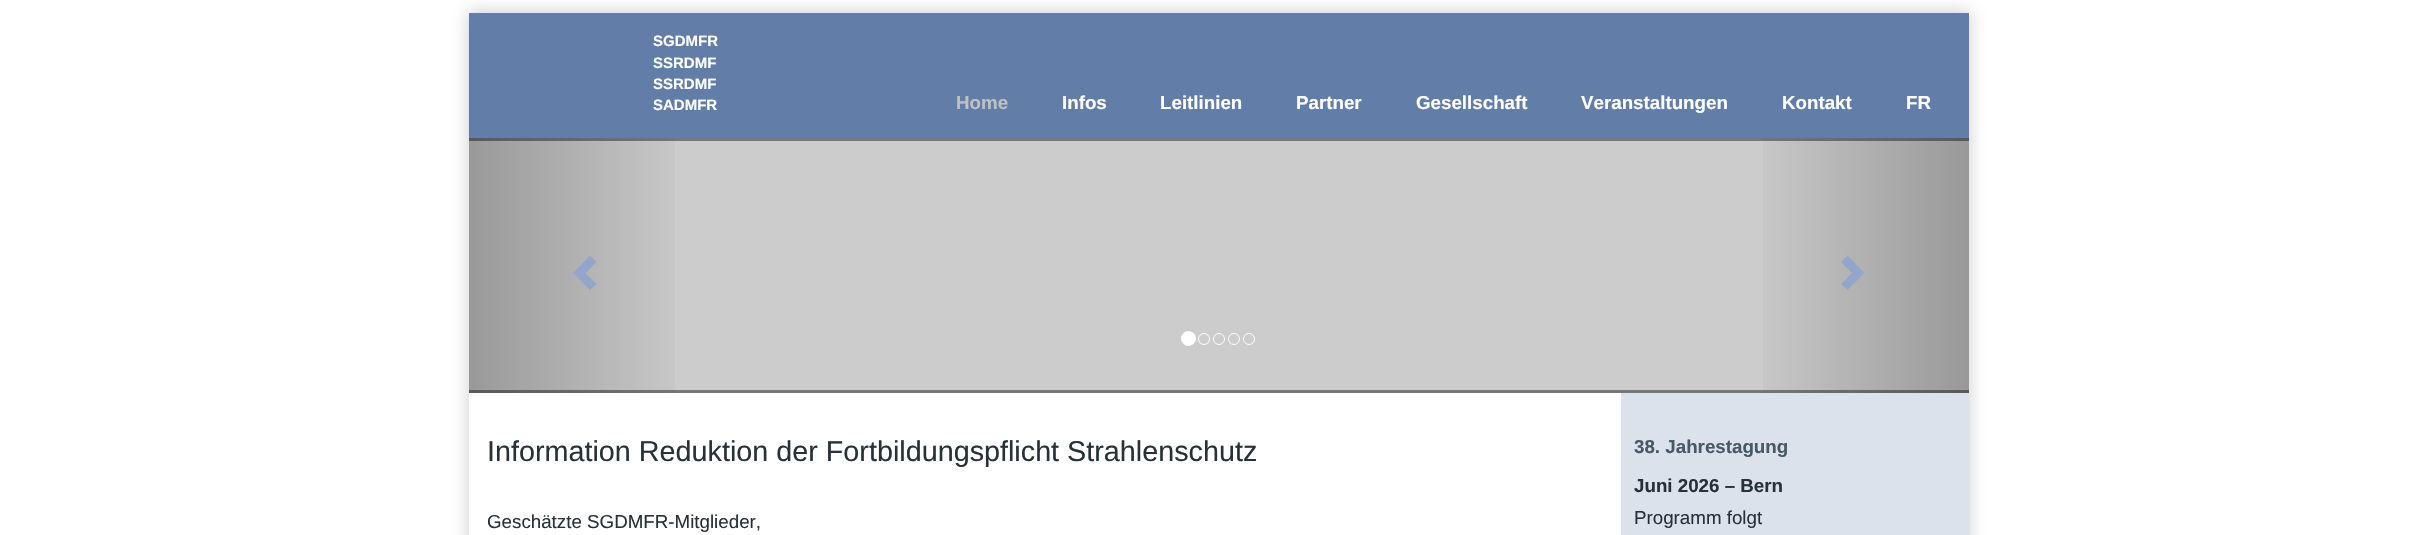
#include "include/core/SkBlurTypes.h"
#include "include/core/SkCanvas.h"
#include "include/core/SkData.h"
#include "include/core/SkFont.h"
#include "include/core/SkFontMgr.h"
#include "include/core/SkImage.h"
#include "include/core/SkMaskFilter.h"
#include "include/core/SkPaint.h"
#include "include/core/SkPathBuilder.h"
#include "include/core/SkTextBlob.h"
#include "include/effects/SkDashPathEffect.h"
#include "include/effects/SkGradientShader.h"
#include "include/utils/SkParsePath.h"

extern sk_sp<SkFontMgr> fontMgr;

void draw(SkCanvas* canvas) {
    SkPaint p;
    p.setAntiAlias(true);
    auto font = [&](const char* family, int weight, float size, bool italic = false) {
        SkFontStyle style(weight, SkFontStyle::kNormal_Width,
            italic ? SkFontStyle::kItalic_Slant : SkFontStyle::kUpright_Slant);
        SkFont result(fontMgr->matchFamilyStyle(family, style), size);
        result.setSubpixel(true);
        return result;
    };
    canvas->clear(0xFFFFFFFF);
    p.setColor(0x80A2A2A2);
    p.setMaskFilter(SkMaskFilter::MakeBlur(kNormal_SkBlurStyle, 8));
    canvas->drawRect(SkRect::MakeLTRB(468, 11, 1970, 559), p);
    p.setMaskFilter(nullptr);
    p.setColor(0xFFFFFFFF);
    canvas->drawRect(SkRect::MakeLTRB(469, 393, 1621, 535), p);
    p.setColor(0xFF617DA8);
    canvas->drawRect(SkRect::MakeLTRB(469, 13, 1969, 138), p);
    auto font1 = font("Liberation Sans", 700, 15);
    p.setColor(0xFFFFFFFF);
    {
        const struct { const char* s; float x, y; } items[] = {
            {"SGDMFR", 653, 46},
            {"SSRDMF", 653, 68},
            {"SSRDMF", 653, 89},
            {"SADMFR", 653, 110},
        };
        for (auto [s, x, y] : items) {
            canvas->drawString(s, x, y, font1, p);
        }
    }
    auto font2 = font("Liberation Sans", 700, 18.75f);
    p.setColor(0xFFC0C0C0);
    canvas->drawString("Home", 956, 109, font2, p);
    p.setColor(0xFFFFFFFF);
    {
        const struct { const char* s; float x, y; } items[] = {
            {"Infos", 1062, 109},
            {"Leitlinien", 1160, 109},
            {"Partner", 1296, 109},
            {"Gesellschaft", 1416, 109},
            {"Veranstaltungen", 1581, 109},
            {"Kontakt", 1782, 109},
            {"FR", 1906, 109},
        };
        for (auto [s, x, y] : items) {
            canvas->drawString(s, x, y, font2, p);
        }
    }
    {
        const struct { float l, t, r, b; SkColor color; } items[] = {
            {469, 141, 1969, 390, 0xFFCCCCCC},
            {469, 138, 1969, 141, 0xFF777777},
            {469, 390, 1969, 393, 0xFF777777},
        };
        for (auto [l, t, r, b, color] : items) {
            p.setColor(color);
            canvas->drawRect(SkRect::MakeLTRB(l, t, r, b), p);
        }
    }
    {
        const SkColor colors[] = {0x40000000, 0x00000000};
        const float stops[] = {0, 1};
        const SkPoint ends[] = {{469, 265}, {694, 265}};
        p.setShader(SkGradientShader::MakeLinear(ends, colors, stops, 2, SkTileMode::kClamp));
        p.setAlpha(255);
    }
    canvas->drawRect(SkRect::MakeLTRB(469, 138, 675, 393), p);
    p.setShader(nullptr);
    p.setColor(0xFF92A6CB);
    canvas->drawPath(SkPathBuilder().moveTo(596.5f, 262).lineTo(585.5f, 273).lineTo(596.5f, 284).lineTo(590, 290).lineTo(573, 273).lineTo(590, 255.5f).close().detach(), p);
    p.setColor(0xFFFFFFFF);
    canvas->drawCircle(1188.5f, 338.5f, 7, p);
    p.setStyle(SkPaint::kStroke_Style);
    p.setStrokeWidth(1);
    canvas->drawCircle(1188.5f, 338.5f, 7, p);
    canvas->drawCircle(1204, 339, 5.5f, p);
    canvas->drawCircle(1219, 339, 5.5f, p);
    canvas->drawCircle(1234, 339, 5.5f, p);
    canvas->drawCircle(1249, 339, 5.5f, p);
    p.setStyle(SkPaint::kFill_Style);
    {
        const SkColor colors[] = {0x00000000, 0x40000000};
        const float stops[] = {0, 1};
        const SkPoint ends[] = {{1744, 265}, {1969, 265}};
        p.setShader(SkGradientShader::MakeLinear(ends, colors, stops, 2, SkTileMode::kClamp));
        p.setAlpha(255);
    }
    canvas->drawRect(SkRect::MakeLTRB(1763, 138, 1969, 393), p);
    p.setShader(nullptr);
    p.setColor(0xFF92A6CB);
    canvas->drawPath(SkPathBuilder().moveTo(1864.5f, 273).lineTo(1847.5f, 290).lineTo(1841, 284).lineTo(1852, 273).lineTo(1841, 262).lineTo(1847.5f, 255.5f).close().detach(), p);
    auto font3 = font("Liberation Sans", 400, 28.75f);
    p.setColor(0xFF263238);
    canvas->drawString("Information Reduktion der Fortbildungspflicht Strahlenschutz", 487, 461, font3, p);
    auto font4 = font("Liberation Sans", 400, 18.75f);
    canvas->drawString("Geschätzte SGDMFR-Mitglieder,", 487, 528, font4, p);
    p.setColor(0xFFDCE2EC);
    canvas->drawRect(SkRect::MakeLTRB(1621, 393, 1969, 535), p);
    p.setColor(0xFF455A64);
    canvas->drawString("38. Jahrestagung", 1634, 453, font2, p);
    p.setColor(0xFF263238);
    canvas->drawString("Juni 2026 – Bern", 1634, 492, font2, p);
    canvas->drawString("Programm folgt", 1634, 524, font4, p);
}
